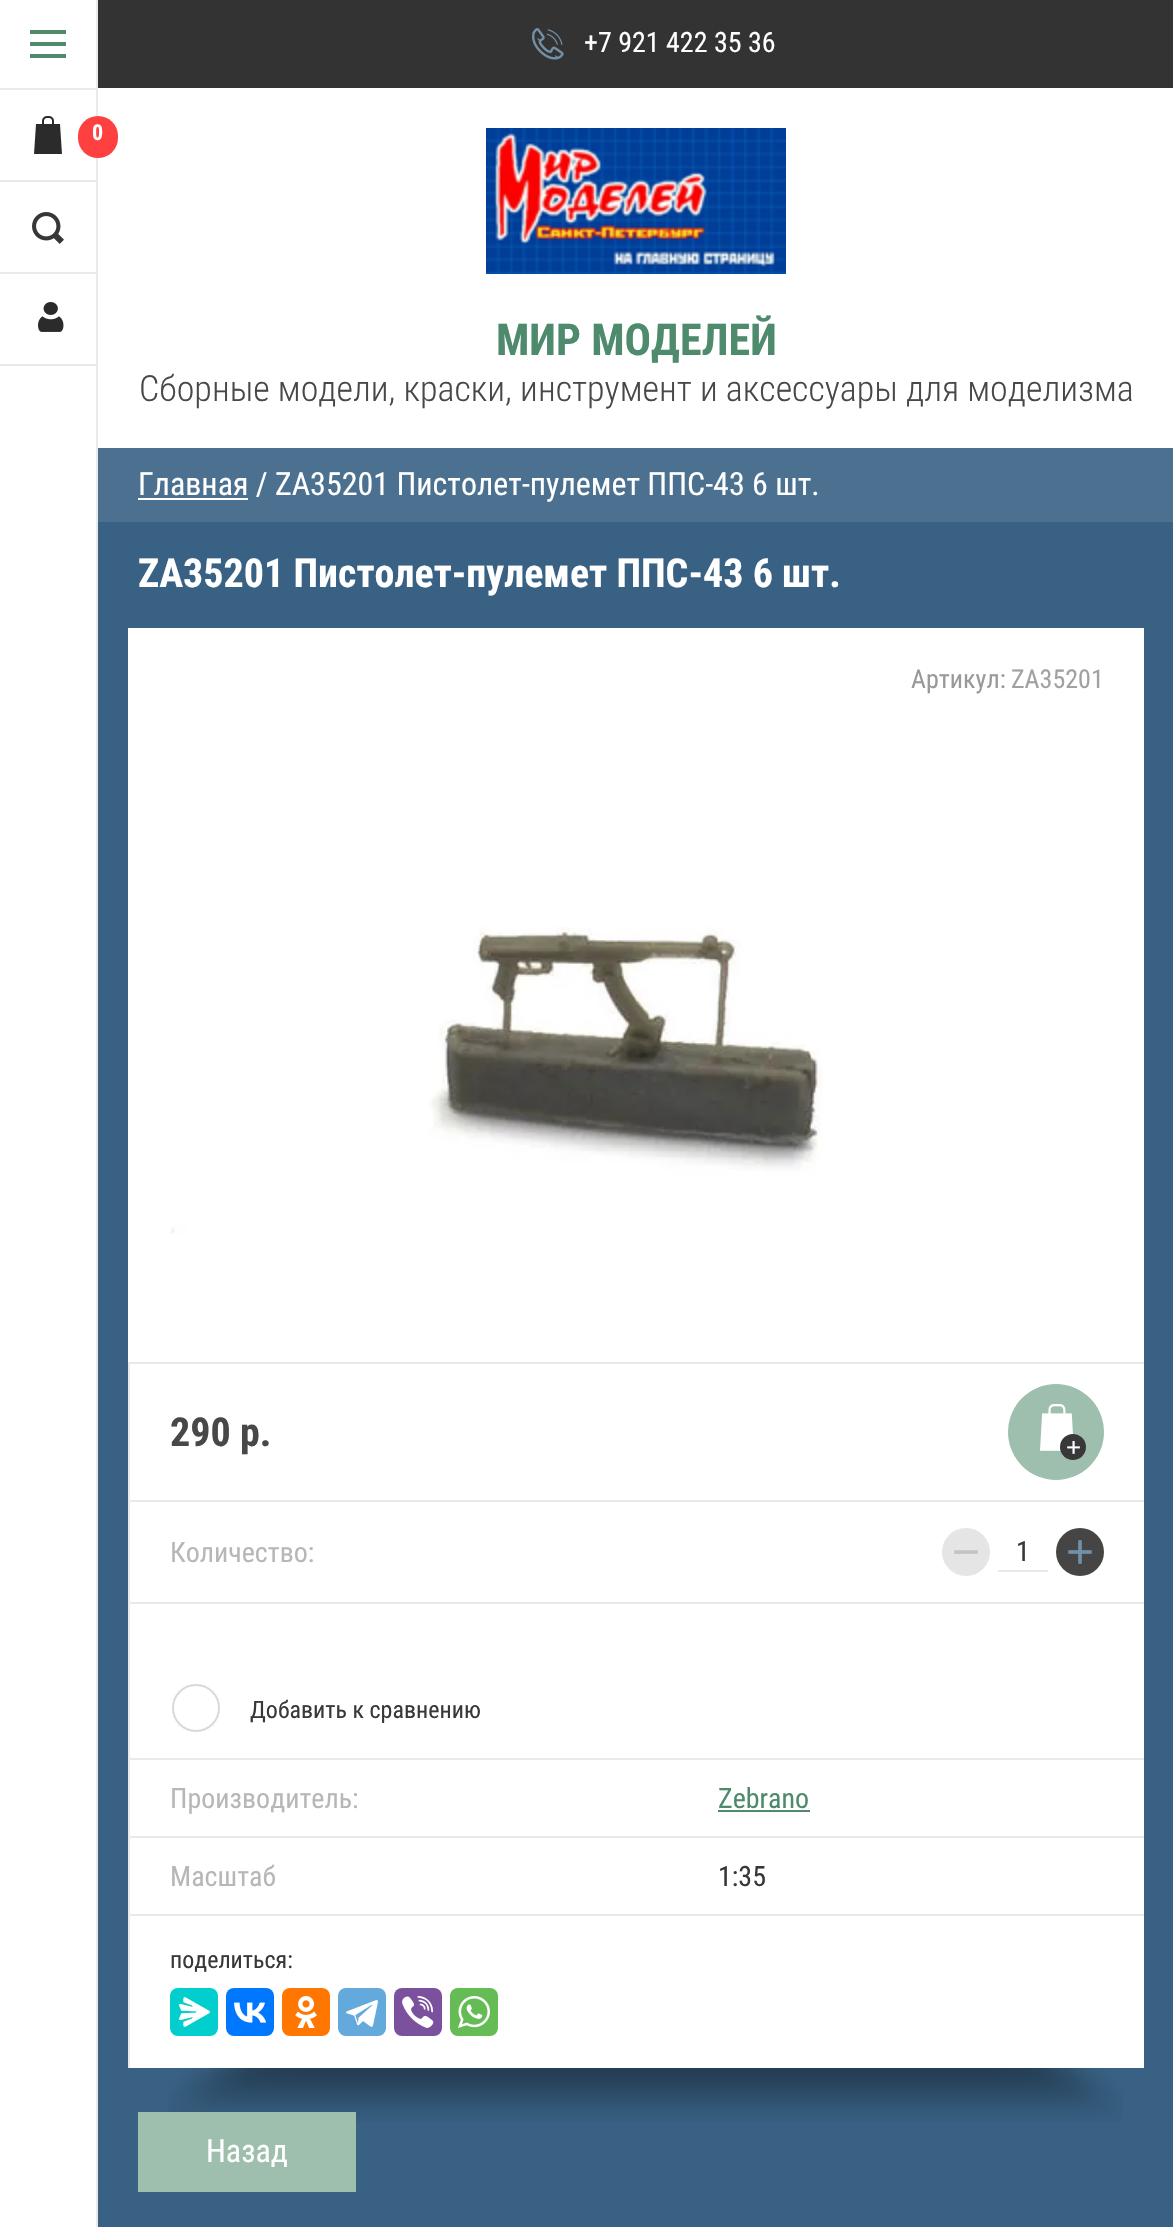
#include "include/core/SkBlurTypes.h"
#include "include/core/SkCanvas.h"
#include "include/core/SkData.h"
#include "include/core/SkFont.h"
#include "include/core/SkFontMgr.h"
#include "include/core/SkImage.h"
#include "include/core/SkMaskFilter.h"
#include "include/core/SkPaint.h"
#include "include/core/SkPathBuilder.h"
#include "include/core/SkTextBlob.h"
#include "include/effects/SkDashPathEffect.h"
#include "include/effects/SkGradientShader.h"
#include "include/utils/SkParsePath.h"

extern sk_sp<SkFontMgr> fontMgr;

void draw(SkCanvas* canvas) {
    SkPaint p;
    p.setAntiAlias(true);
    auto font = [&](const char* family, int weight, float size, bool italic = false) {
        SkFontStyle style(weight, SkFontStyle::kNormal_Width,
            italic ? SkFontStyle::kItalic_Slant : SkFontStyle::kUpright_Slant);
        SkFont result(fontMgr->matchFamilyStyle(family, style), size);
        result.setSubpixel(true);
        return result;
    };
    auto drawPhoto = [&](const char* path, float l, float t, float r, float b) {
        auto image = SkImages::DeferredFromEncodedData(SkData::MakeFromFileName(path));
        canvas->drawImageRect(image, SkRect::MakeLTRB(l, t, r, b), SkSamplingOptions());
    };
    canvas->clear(0xFF386184);
    {
        const struct { float l, t, r, b; SkColor color; } items[] = {
            {0, 0, 96, 2227, 0xFFFFFFFF},
            {96, 0, 98, 2227, 0xFFEAEAEA},
            {0, 88, 98, 90, 0xFFEAEAEA},
        };
        for (auto [l, t, r, b, color] : items) {
            p.setColor(color);
            canvas->drawRect(SkRect::MakeLTRB(l, t, r, b), p);
        }
    }
    p.setColor(0xFF4E8A6C);
    canvas->drawPath(SkPathBuilder().moveTo(30, 58).lineTo(30, 54).lineTo(66, 54).lineTo(66, 58).close().moveTo(30, 42).lineTo(66, 42).lineTo(66, 46).lineTo(30, 46).close().moveTo(30, 30).lineTo(66, 30).lineTo(66, 34).lineTo(30, 34).close().detach(), p);
    p.setColor(0xFFEAEAEA);
    canvas->drawRect(SkRect::MakeLTRB(0, 180, 96, 182), p);
    drawPhoto("media/1.png", 34, 116, 62, 154);
    p.setColor(0xFFFFFFFF);
    canvas->drawRect(SkRect::MakeLTRB(98, 88, 1173, 448), p);
    p.setColor(0xFFFF4040);
    canvas->drawRoundRect(SkRect::MakeLTRB(78, 116, 118, 158), 20, 20, p);
    auto font1 = font("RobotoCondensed", 700, 22);
    p.setColor(0xFFFFFFFF);
    canvas->drawString("0", 92, 140, font1, p);
    p.setColor(0xFFEAEAEA);
    canvas->drawRect(SkRect::MakeLTRB(0, 272, 96, 274), p);
    drawPhoto("media/2.png", 32, 212, 64, 244);
    canvas->drawRect(SkRect::MakeLTRB(0, 364, 96, 366), p);
    drawPhoto("media/3.png", 38, 302, 64, 332);
    p.setColor(0xFF333333);
    canvas->drawRect(SkRect::MakeLTRB(98, 0, 1173, 88), p);
    drawPhoto("media/4.png", 532, 28, 564, 60);
    auto font2 = font("RobotoCondensed", 400, 28);
    p.setColor(0xFFFFFFFF);
    canvas->drawString("+7 921 422 35 36", 584, 52, font2, p);
    drawPhoto("media/5.png", 486, 128, 786, 274);
    auto font3 = font("RobotoCondensed", 700, 44);
    p.setColor(0xFF4E8A6C);
    canvas->drawString("МИР МОДЕЛЕЙ", 496, 355, font3, p);
    auto font4 = font("Roboto Condensed", 300, 36);
    p.setColor(0xFF484848);
    canvas->drawString("Сборные модели, краски, инструмент и аксессуары для моделизма", 139, 401, font4, p);
    p.setColor(0xFF4C7190);
    canvas->drawRect(SkRect::MakeLTRB(98, 448, 1173, 522), p);
    p.setColor(0xFFFFFFFF);
    canvas->drawRect(SkRect::MakeLTRB(138, 498, 248, 500), p);
    auto font5 = font("RobotoCondensed", 400, 32);
    canvas->drawString("Главная / ZA35201 Пистолет-пулемет ППС-43 6 шт.", 138, 495, font5, p);
    auto font6 = font("RobotoCondensed", 700, 40);
    canvas->drawString("ZA35201 Пистолет-пулемет ППС-43 6 шт.", 138, 587, font6, p);
    canvas->drawRect(SkRect::MakeLTRB(128, 628, 1144, 2068), p);
    auto font7 = font("RobotoCondensed", 400, 26);
    p.setColor(0xFF999999);
    canvas->drawString("Артикул:", 911, 688, font7, p);
    p.setColor(0xFFA1A1A1);
    canvas->drawString("ZA35201", 1011, 688, font7, p);
    drawPhoto("media/6.png", 170, 927, 823, 1234);
    p.setColor(0xFFEAEAEA);
    canvas->drawRect(SkRect::MakeLTRB(128, 1362, 130, 2068), p);
    canvas->drawRect(SkRect::MakeLTRB(130, 1362, 1144, 1364), p);
    p.setColor(0xFF484848);
    canvas->drawString("290 р.", 170, 1446, font6, p);
    p.setColor(0xFF9EBFAE);
    canvas->drawCircle(1056, 1432, 48, p);
    drawPhoto("media/7.png", 1040, 1404, 1073, 1451);
    p.setColor(0xFF383838);
    canvas->drawCircle(1073, 1447, 13, p);
    auto font8 = font("Liberation Sans", 400, 26);
    p.setColor(0xFFFFFFFF);
    canvas->drawString("+", 1066, 1456, font8, p);
    p.setColor(0xFFEAEAEA);
    canvas->drawRect(SkRect::MakeLTRB(130, 1500, 1144, 1502), p);
    p.setColor(0xFFB7B7B7);
    canvas->drawString("Количество:", 170, 1562, font2, p);
    p.setColor(0xFFE5E5E5);
    canvas->drawCircle(966, 1552, 24, p);
    auto font9 = font("Liberation Sans", 400, 48);
    p.setColor(0xFFC3C3C3);
    canvas->drawString("−", 952, 1568, font9, p);
    p.setColor(0xFFEAEAEA);
    canvas->drawRect(SkRect::MakeLTRB(998, 1570, 1048, 1572), p);
    p.setColor(0xFF383838);
    canvas->drawString("1", 1016, 1561, font2, p);
    p.setColor(0xFF454545);
    canvas->drawCircle(1080, 1552, 24, p);
    p.setColor(0xFF7490A9);
    canvas->drawString("+", 1066, 1568, font9, p);
    p.setColor(0xFFEAEAEA);
    canvas->drawRect(SkRect::MakeLTRB(130, 1602, 1144, 1604), p);
    canvas->drawRect(SkRect::MakeLTRB(130, 1758, 1144, 1760), p);
    p.setStyle(SkPaint::kStroke_Style);
    p.setStrokeWidth(2);
    p.setColor(0xFFD9D9D9);
    canvas->drawCircle(196, 1708, 23, p);
    auto font10 = font("RobotoCondensed", 400, 24);
    p.setStyle(SkPaint::kFill_Style);
    p.setColor(0xFF383838);
    canvas->drawString("Добавить к сравнению", 250, 1718, font10, p);
    p.setColor(0xFFB7B7B7);
    canvas->drawString("Производитель:", 170, 1808, font2, p);
    p.setColor(0xFF4E8A6C);
    canvas->drawString("Zebrano", 718, 1808, font2, p);
    canvas->drawRect(SkRect::MakeLTRB(718, 1810, 810, 1812), p);
    p.setColor(0xFFEAEAEA);
    canvas->drawRect(SkRect::MakeLTRB(130, 1836, 1144, 1838), p);
    p.setColor(0xFFB7B7B7);
    canvas->drawString("Масштаб", 170, 1886, font2, p);
    p.setColor(0xFF383838);
    canvas->drawString("1:35", 718, 1886, font2, p);
    p.setColor(0xFFEAEAEA);
    canvas->drawRect(SkRect::MakeLTRB(130, 1914, 1144, 1916), p);
    p.setColor(0xFF383838);
    canvas->drawString("поделиться:", 170, 1968, font10, p);
    p.setColor(0xFF03CECE);
    canvas->drawRoundRect(SkRect::MakeLTRB(170, 1988, 218, 2036), 8, 8, p);
    drawPhoto("media/8.png", 179, 1997, 210, 2027);
    p.setColor(0xFF0077FF);
    canvas->drawRoundRect(SkRect::MakeLTRB(226, 1988, 274, 2036), 8, 8, p);
    drawPhoto("media/9.png", 234, 2002, 267, 2023);
    p.setColor(0xFFFF7700);
    canvas->drawRoundRect(SkRect::MakeLTRB(282, 1988, 330, 2036), 8, 8, p);
    drawPhoto("media/10.png", 295, 1996, 317, 2028);
    p.setColor(0xFF64A9DC);
    canvas->drawRoundRect(SkRect::MakeLTRB(338, 1988, 386, 2036), 8, 8, p);
    drawPhoto("media/11.png", 346, 2000, 378, 2027);
    p.setColor(0xFF7B519D);
    canvas->drawRoundRect(SkRect::MakeLTRB(394, 1988, 442, 2036), 8, 8, p);
    drawPhoto("media/12.png", 402, 1996, 434, 2028);
    p.setColor(0xFF65BC54);
    canvas->drawRoundRect(SkRect::MakeLTRB(450, 1988, 498, 2036), 8, 8, p);
    drawPhoto("media/13.png", 458, 1996, 490, 2028);
    drawPhoto("media/14.png", 168, 2068, 1123, 2122);
    p.setColor(0xFF9EBFAE);
    canvas->drawRect(SkRect::MakeLTRB(138, 2112, 356, 2192), p);
    p.setColor(0xFFFFFFFF);
    canvas->drawString("Назад", 206, 2162, font5, p);
}
